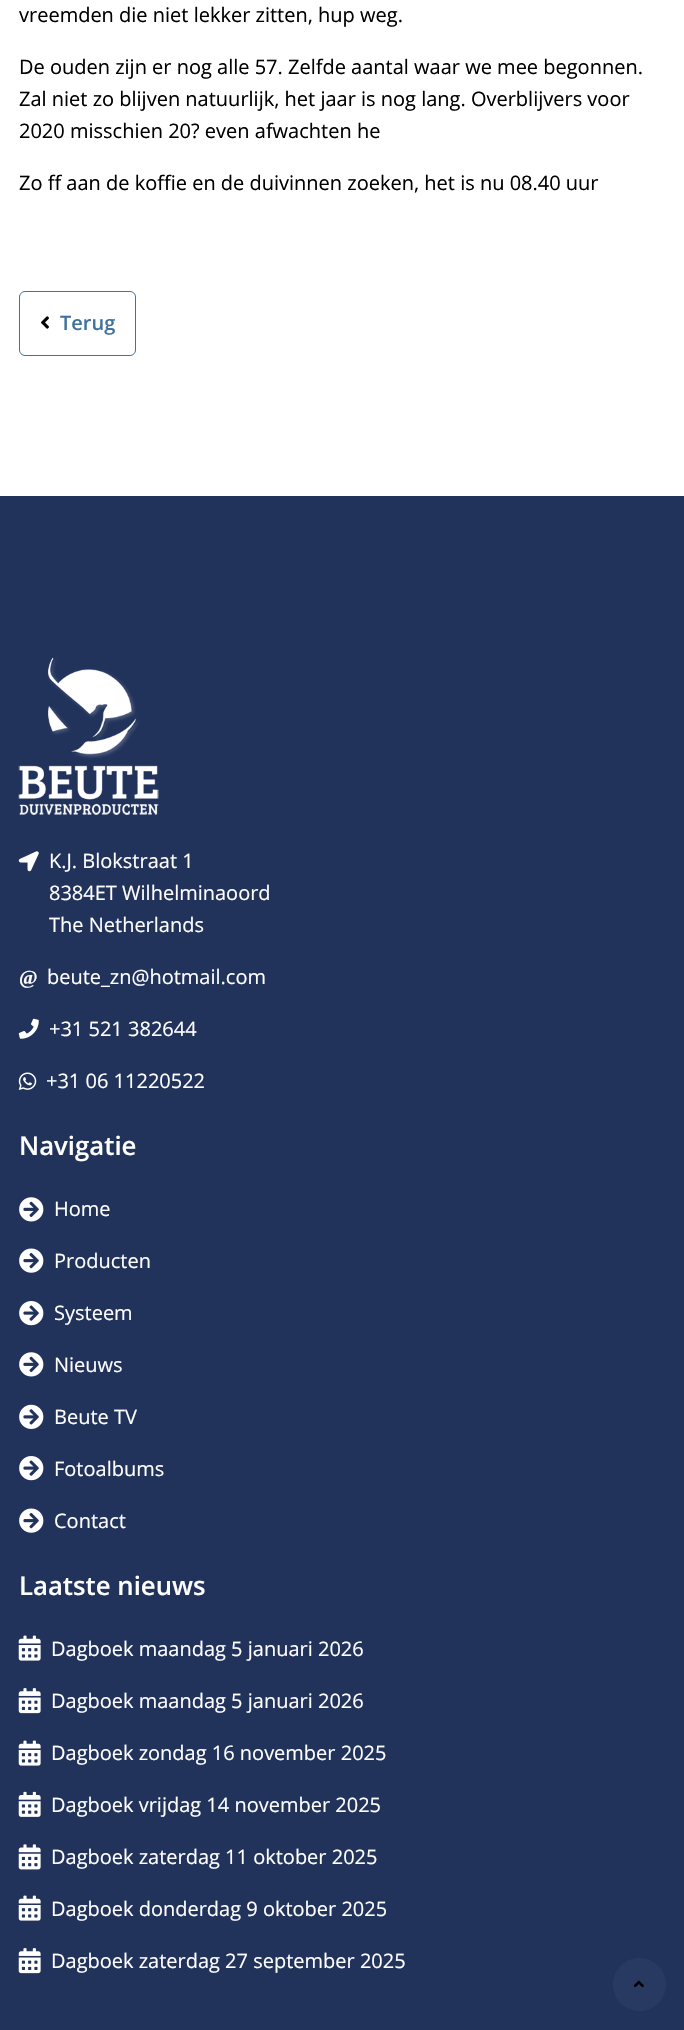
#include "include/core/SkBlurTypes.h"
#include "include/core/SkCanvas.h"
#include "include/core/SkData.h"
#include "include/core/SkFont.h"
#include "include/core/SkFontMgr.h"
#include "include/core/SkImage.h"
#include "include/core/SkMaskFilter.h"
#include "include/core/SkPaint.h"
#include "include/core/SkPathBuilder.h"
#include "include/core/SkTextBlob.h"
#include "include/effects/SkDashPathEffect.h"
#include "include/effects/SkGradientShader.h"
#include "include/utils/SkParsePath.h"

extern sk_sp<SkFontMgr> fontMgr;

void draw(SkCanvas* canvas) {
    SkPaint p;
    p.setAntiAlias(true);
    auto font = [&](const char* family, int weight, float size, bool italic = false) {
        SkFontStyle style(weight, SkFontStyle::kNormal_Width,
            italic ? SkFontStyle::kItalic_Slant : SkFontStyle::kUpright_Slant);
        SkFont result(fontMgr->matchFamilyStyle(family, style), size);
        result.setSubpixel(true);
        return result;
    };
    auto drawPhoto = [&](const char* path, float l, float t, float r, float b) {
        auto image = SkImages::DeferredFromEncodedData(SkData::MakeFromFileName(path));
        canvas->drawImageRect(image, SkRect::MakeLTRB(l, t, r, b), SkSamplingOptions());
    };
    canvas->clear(0xFFFFFFFF);
    auto font1 = font("Open Sans", 400, 20);
    p.setColor(0xFF000000);
    {
        const struct { const char* s; float x, y; } items[] = {
            {"vreemden die niet lekker zitten, hup weg.", 19, 22},
            {"De ouden zijn er nog alle 57. Zelfde aantal waar we mee begonnen.", 19, 74},
            {"Zal niet zo blijven natuurlijk, het jaar is nog lang. Overblijvers voor", 19, 106},
            {"2020 misschien 20? even afwachten he", 19, 138},
            {"Zo ff aan de koffie en de duivinnen zoeken, het is nu 08.40 uur", 19, 190},
        };
        for (auto [s, x, y] : items) {
            canvas->drawString(s, x, y, font1, p);
        }
    }
    p.setStyle(SkPaint::kStroke_Style);
    p.setStrokeWidth(1);
    p.setColor(0xFF41729F);
    canvas->drawRoundRect(SkRect::MakeLTRB(19.5f, 291.5f, 135.5f, 355.5f), 5.5f, 5.5f, p);
    drawPhoto("media/1.png", 41, 316, 49, 329);
    auto font2 = font("Open Sans", 600, 20);
    p.setStyle(SkPaint::kFill_Style);
    canvas->drawString("Terug", 60, 330, font2, p);
    p.setColor(0xFF21325B);
    canvas->drawRect(SkRect::MakeLTRB(0, 496, 684, 2030), p);
    drawPhoto("media/2.png", 18, 657, 159, 815);
    drawPhoto("media/3.png", 18, 851, 39, 872);
    p.setColor(0xFFFFFFFF);
    {
        const struct { const char* s; float x, y; } items[] = {
            {"K.J. Blokstraat 1", 49, 868},
            {"8384ET Wilhelminaoord", 49, 900},
            {"The Netherlands", 49, 932},
        };
        for (auto [s, x, y] : items) {
            canvas->drawString(s, x, y, font1, p);
        }
    }
    auto font3 = font("Liberation Serif", 700, 20);
    canvas->drawString("@", 19, 984, font3, p);
    canvas->drawString("beute_zn@hotmail.com", 47, 984, font1, p);
    drawPhoto("media/4.png", 18, 1018, 39, 1039);
    canvas->drawString("+31 521 382644", 49, 1036, font1, p);
    drawPhoto("media/5.png", 18, 1072, 37, 1090);
    canvas->drawString("+31 06 11220522", 46, 1088, font1, p);
    auto font4 = font("Open Sans", 600, 25.75f);
    canvas->drawString("Navigatie", 19, 1155, font4, p);
    drawPhoto("media/6.png", 19, 1197, 44, 1222);
    canvas->drawString("Home", 54, 1216, font1, p);
    drawPhoto("media/7.png", 19, 1248, 44, 1273);
    canvas->drawString("Producten", 54, 1268, font1, p);
    drawPhoto("media/8.png", 19, 1301, 44, 1326);
    canvas->drawString("Systeem", 54, 1320, font1, p);
    drawPhoto("media/6.png", 19, 1352, 44, 1377);
    canvas->drawString("Nieuws", 54, 1372, font1, p);
    drawPhoto("media/9.png", 19, 1404, 44, 1429);
    canvas->drawString("Beute TV", 54, 1424, font1, p);
    drawPhoto("media/8.png", 19, 1456, 44, 1481);
    canvas->drawString("Fotoalbums", 54, 1476, font1, p);
    drawPhoto("media/7.png", 19, 1508, 44, 1533);
    canvas->drawString("Contact", 54, 1528, font1, p);
    canvas->drawString("Laatste nieuws", 19, 1595, font4, p);
    drawPhoto("media/10.png", 18, 1635, 41, 1661);
    canvas->drawString("Dagboek maandag 5 januari 2026", 51, 1656, font1, p);
    drawPhoto("media/11.png", 18, 1688, 41, 1714);
    canvas->drawString("Dagboek maandag 5 januari 2026", 51, 1708, font1, p);
    drawPhoto("media/10.png", 18, 1740, 41, 1766);
    canvas->drawString("Dagboek zondag 16 november 2025", 51, 1760, font1, p);
    drawPhoto("media/12.png", 18, 1791, 41, 1817);
    canvas->drawString("Dagboek vrijdag 14 november 2025", 51, 1812, font1, p);
    drawPhoto("media/13.png", 18, 1844, 41, 1870);
    canvas->drawString("Dagboek zaterdag 11 oktober 2025", 51, 1864, font1, p);
    drawPhoto("media/10.png", 18, 1895, 41, 1921);
    canvas->drawString("Dagboek donderdag 9 oktober 2025", 51, 1916, font1, p);
    drawPhoto("media/11.png", 18, 1948, 41, 1974);
    canvas->drawString("Dagboek zaterdag 27 september 2025", 51, 1968, font1, p);
    p.setColor(0xFF293A62);
    canvas->drawCircle(639.5f, 1984.5f, 26.5f, p);
    drawPhoto("media/14.png", 633, 1980, 644, 1988);
}
